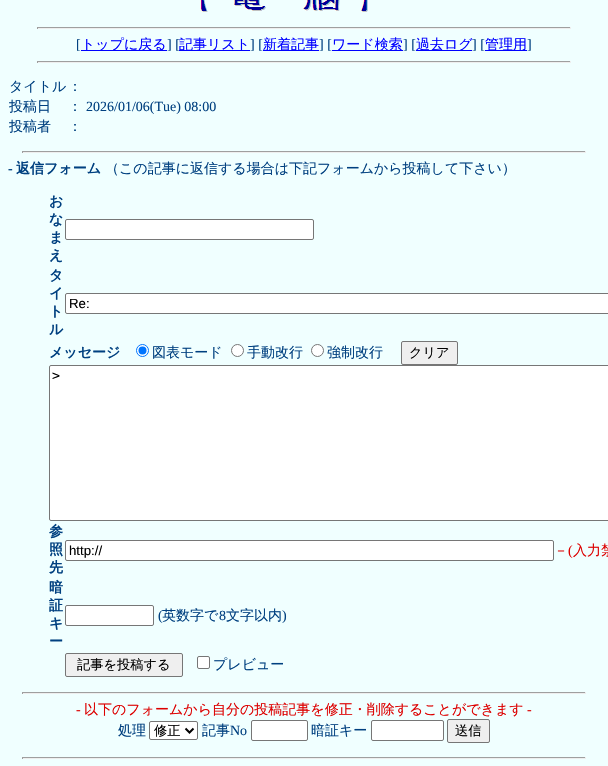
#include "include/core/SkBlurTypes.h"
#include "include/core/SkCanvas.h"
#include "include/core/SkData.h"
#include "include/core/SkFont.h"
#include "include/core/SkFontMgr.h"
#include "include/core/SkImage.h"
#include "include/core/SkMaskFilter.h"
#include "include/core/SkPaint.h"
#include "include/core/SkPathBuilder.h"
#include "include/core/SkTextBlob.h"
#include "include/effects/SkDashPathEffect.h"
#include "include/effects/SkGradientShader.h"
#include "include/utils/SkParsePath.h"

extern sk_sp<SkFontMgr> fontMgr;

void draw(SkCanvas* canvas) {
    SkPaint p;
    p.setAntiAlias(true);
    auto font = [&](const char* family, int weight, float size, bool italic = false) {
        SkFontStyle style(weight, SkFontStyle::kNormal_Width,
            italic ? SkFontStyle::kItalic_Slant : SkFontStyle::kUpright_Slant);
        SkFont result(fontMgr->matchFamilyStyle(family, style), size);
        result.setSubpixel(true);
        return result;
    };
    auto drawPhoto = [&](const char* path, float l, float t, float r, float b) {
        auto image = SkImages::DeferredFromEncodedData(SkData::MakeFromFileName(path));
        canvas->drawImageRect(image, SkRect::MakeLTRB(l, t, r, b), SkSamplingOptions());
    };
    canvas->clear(0xFFF0FFFF);
    drawPhoto("media/1.png", 200, 0, 369, 12);
    {
        const struct { float l, t, r, b; SkColor color; } items[] = {
            {37, 27, 571, 28, 0xFF9F9F9F},
            {570, 27, 571, 29, 0xFFEEEEEE},
            {37, 28, 571, 29, 0xFFEEEEEE},
            {37, 27, 38, 29, 0xFF9F9F9F},
        };
        for (auto [l, t, r, b, color] : items) {
            p.setColor(color);
            canvas->drawRect(SkRect::MakeLTRB(l, t, r, b), p);
        }
    }
    auto font1 = font("Liberation Serif", 400, 14);
    p.setColor(0xFF004080);
    canvas->drawString("[", 76, 49, font1, p);
    p.setColor(0xFF0000FF);
    canvas->drawRect(SkRect::MakeLTRB(81, 50, 167, 51), p);
    auto font2 = font("WenQuanYi Zen Hei", 500, 14);
    canvas->drawString("トップに戻る", 81, 49, font2, p);
    p.setColor(0xFF004080);
    canvas->drawString("] [", 167, 49, font1, p);
    p.setColor(0xFF0000FF);
    canvas->drawRect(SkRect::MakeLTRB(179, 50, 250, 51), p);
    canvas->drawString("記事リスト", 179, 49, font2, p);
    p.setColor(0xFF004080);
    canvas->drawString("] [", 250, 49, font1, p);
    p.setColor(0xFF0000FF);
    canvas->drawRect(SkRect::MakeLTRB(263, 50, 319, 51), p);
    canvas->drawString("新着記事", 263, 49, font2, p);
    p.setColor(0xFF004080);
    canvas->drawString("] [", 319, 49, font1, p);
    p.setColor(0xFF0000FF);
    canvas->drawRect(SkRect::MakeLTRB(332, 50, 403, 51), p);
    canvas->drawString("ワード検索", 332, 49, font2, p);
    p.setColor(0xFF004080);
    canvas->drawString("] [", 403, 49, font1, p);
    p.setColor(0xFF0000FF);
    canvas->drawRect(SkRect::MakeLTRB(416, 50, 472, 51), p);
    canvas->drawString("過去ログ", 416, 49, font2, p);
    p.setColor(0xFF004080);
    canvas->drawString("] [", 472, 49, font1, p);
    p.setColor(0xFF0000FF);
    canvas->drawRect(SkRect::MakeLTRB(485, 50, 527, 51), p);
    canvas->drawString("管理用", 485, 49, font2, p);
    p.setColor(0xFF004080);
    canvas->drawString("]", 527, 49, font1, p);
    {
        const struct { float l, t, r, b; SkColor color; } items[] = {
            {37, 61, 571, 62, 0xFF9F9F9F},
            {570, 61, 571, 63, 0xFFEEEEEE},
            {37, 62, 571, 63, 0xFFEEEEEE},
            {37, 61, 38, 63, 0xFF9F9F9F},
        };
        for (auto [l, t, r, b, color] : items) {
            p.setColor(color);
            canvas->drawRect(SkRect::MakeLTRB(l, t, r, b), p);
        }
    }
    p.setColor(0xFF004080);
    {
        const struct { const char* s; float x, y; } items[] = {
            {"タイトル", 9, 91},
            {"：", 68, 91},
            {"投稿日", 9, 111},
            {"：", 68, 111},
        };
        for (auto [s, x, y] : items) {
            canvas->drawString(s, x, y, font2, p);
        }
    }
    canvas->drawString("2026/01/06(Tue) 08:00", 86, 111, font1, p);
    canvas->drawString("投稿者", 9, 131, font2, p);
    canvas->drawString("：", 68, 131, font2, p);
    {
        const struct { float l, t, r, b; SkColor color; } items[] = {
            {22, 151, 586, 152, 0xFF9F9F9F},
            {585, 151, 586, 153, 0xFFEEEEEE},
            {22, 152, 586, 153, 0xFFEEEEEE},
            {22, 151, 23, 153, 0xFF9F9F9F},
        };
        for (auto [l, t, r, b, color] : items) {
            p.setColor(color);
            canvas->drawRect(SkRect::MakeLTRB(l, t, r, b), p);
        }
    }
    auto font3 = font("Liberation Serif", 700, 14);
    p.setColor(0xFF004080);
    canvas->drawString("-", 8, 173, font3, p);
    auto font4 = font("WenQuanYi Zen Hei", 700, 14);
    canvas->drawString("返信フォーム", 16, 173, font4, p);
    canvas->drawString("（この記事に返信する場合は下記フォームから投稿して下さい）", 105, 173, font2, p);
    {
        const struct { const char* s; float x, y; } items[] = {
            {"お", 49, 206},
            {"な", 49, 224},
            {"ま", 49, 242},
            {"え", 49, 260},
        };
        for (auto [s, x, y] : items) {
            canvas->drawString(s, x, y, font4, p);
        }
    }
    p.setColor(0xFFFFFFFF);
    canvas->drawRoundRect(SkRect::MakeLTRB(65.5f, 219.5f, 313.5f, 239.5f), 1.5f, 1.5f, p);
    p.setStyle(SkPaint::kStroke_Style);
    p.setStrokeWidth(1);
    p.setColor(0xFF767676);
    canvas->drawRoundRect(SkRect::MakeLTRB(65.5f, 219.5f, 313.5f, 239.5f), 1.5f, 1.5f, p);
    p.setStyle(SkPaint::kFill_Style);
    p.setColor(0xFF004080);
    {
        const struct { const char* s; float x, y; } items[] = {
            {"タ", 49, 280},
            {"イ", 49, 298},
            {"ト", 49, 316},
            {"ル", 49, 334},
        };
        for (auto [s, x, y] : items) {
            canvas->drawString(s, x, y, font4, p);
        }
    }
    p.setColor(0xFFFFFFFF);
    canvas->drawRoundRect(SkRect::MakeLTRB(65.5f, 293.5f, 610.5f, 313.5f), 1.5f, 1.5f, p);
    p.setStyle(SkPaint::kStroke_Style);
    p.setColor(0xFF767676);
    canvas->drawRoundRect(SkRect::MakeLTRB(65.5f, 293.5f, 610.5f, 313.5f), 1.5f, 1.5f, p);
    auto font5 = font("Liberation Sans", 400, 13.25f);
    p.setStyle(SkPaint::kFill_Style);
    p.setColor(0xFF000000);
    canvas->drawString("Re:", 69, 308, font5, p);
    p.setColor(0xFF004080);
    canvas->drawString("メッセージ", 49, 357, font4, p);
    p.setColor(0xFFFFFFFF);
    canvas->drawCircle(142.5f, 350.5f, 6, p);
    p.setStyle(SkPaint::kStroke_Style);
    p.setColor(0xFF0075FF);
    canvas->drawCircle(142.5f, 350.5f, 6, p);
    p.setStyle(SkPaint::kFill_Style);
    canvas->drawCircle(142.5f, 350.5f, 4, p);
    p.setColor(0xFF004080);
    canvas->drawString("図表モード", 152, 357, font2, p);
    p.setColor(0xFFFFFFFF);
    canvas->drawCircle(237.5f, 350.5f, 6, p);
    p.setStyle(SkPaint::kStroke_Style);
    p.setColor(0xFF767676);
    canvas->drawCircle(237.5f, 350.5f, 6, p);
    p.setStyle(SkPaint::kFill_Style);
    p.setColor(0xFF004080);
    canvas->drawString("手動改行", 247, 357, font2, p);
    p.setColor(0xFFFFFFFF);
    canvas->drawCircle(317.5f, 350.5f, 6, p);
    p.setStyle(SkPaint::kStroke_Style);
    p.setColor(0xFF767676);
    canvas->drawCircle(317.5f, 350.5f, 6, p);
    p.setStyle(SkPaint::kFill_Style);
    p.setColor(0xFF004080);
    canvas->drawString("強制改行", 327, 357, font2, p);
    p.setColor(0xFFEFEFEF);
    canvas->drawRoundRect(SkRect::MakeLTRB(401.5f, 341.5f, 457.5f, 364.5f), 1.5f, 1.5f, p);
    p.setStyle(SkPaint::kStroke_Style);
    p.setColor(0xFF767676);
    canvas->drawRoundRect(SkRect::MakeLTRB(401.5f, 341.5f, 457.5f, 364.5f), 1.5f, 1.5f, p);
    auto font6 = font("WenQuanYi Zen Hei", 500, 13.25f);
    p.setStyle(SkPaint::kFill_Style);
    p.setColor(0xFF000000);
    canvas->drawString("クリア", 409, 357, font6, p);
    p.setColor(0xFFFFFFFF);
    canvas->drawRoundRect(SkRect::MakeLTRB(49.5f, 365.5f, 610.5f, 520.5f), 1.5f, 1.5f, p);
    p.setStyle(SkPaint::kStroke_Style);
    p.setColor(0xFF767676);
    canvas->drawRoundRect(SkRect::MakeLTRB(49.5f, 365.5f, 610.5f, 520.5f), 1.5f, 1.5f, p);
    auto font7 = font("DejaVu Sans Mono", 400, 13.25f);
    p.setStyle(SkPaint::kFill_Style);
    p.setColor(0xFF000000);
    canvas->drawString(">", 52, 380, font7, p);
    p.setColor(0xFF004080);
    {
        const struct { const char* s; float x, y; } items[] = {
            {"参", 49, 536},
            {"照", 49, 554},
            {"先", 49, 572},
        };
        for (auto [s, x, y] : items) {
            canvas->drawString(s, x, y, font4, p);
        }
    }
    p.setColor(0xFFFFFFFF);
    canvas->drawRoundRect(SkRect::MakeLTRB(65.5f, 540.5f, 553.5f, 560.5f), 1.5f, 1.5f, p);
    p.setStyle(SkPaint::kStroke_Style);
    p.setColor(0xFF767676);
    canvas->drawRoundRect(SkRect::MakeLTRB(65.5f, 540.5f, 553.5f, 560.5f), 1.5f, 1.5f, p);
    p.setStyle(SkPaint::kFill_Style);
    p.setColor(0xFF000000);
    canvas->drawString("http://", 69, 555, font5, p);
    p.setColor(0xFFDD0000);
    canvas->drawString("－", 554, 555, font2, p);
    canvas->drawString("(", 568, 555, font1, p);
    canvas->drawString("入力禁", 573, 555, font2, p);
    p.setColor(0xFF004080);
    {
        const struct { const char* s; float x, y; } items[] = {
            {"暗", 49, 592},
            {"証", 49, 610},
            {"キ", 49, 628},
            {"ー", 49, 646},
        };
        for (auto [s, x, y] : items) {
            canvas->drawString(s, x, y, font4, p);
        }
    }
    p.setColor(0xFFFFFFFF);
    canvas->drawRoundRect(SkRect::MakeLTRB(65.5f, 605.5f, 153.5f, 625.5f), 1.5f, 1.5f, p);
    p.setStyle(SkPaint::kStroke_Style);
    p.setColor(0xFF767676);
    canvas->drawRoundRect(SkRect::MakeLTRB(65.5f, 605.5f, 153.5f, 625.5f), 1.5f, 1.5f, p);
    p.setStyle(SkPaint::kFill_Style);
    p.setColor(0xFF004080);
    canvas->drawString("(", 158, 620, font1, p);
    canvas->drawString("英数字で", 162, 620, font2, p);
    canvas->drawString("8", 219, 620, font1, p);
    canvas->drawString("文字以内", 226, 620, font2, p);
    canvas->drawString(")", 282, 620, font1, p);
    p.setColor(0xFFEFEFEF);
    canvas->drawRoundRect(SkRect::MakeLTRB(65.5f, 653.5f, 182.5f, 676.5f), 1.5f, 1.5f, p);
    p.setStyle(SkPaint::kStroke_Style);
    p.setColor(0xFF767676);
    canvas->drawRoundRect(SkRect::MakeLTRB(65.5f, 653.5f, 182.5f, 676.5f), 1.5f, 1.5f, p);
    p.setStyle(SkPaint::kFill_Style);
    p.setColor(0xFF000000);
    canvas->drawString("記事を投稿する", 77, 669, font6, p);
    p.setColor(0xFFFFFFFF);
    canvas->drawRoundRect(SkRect::MakeLTRB(197.5f, 656.5f, 209.5f, 668.5f), 1.5f, 1.5f, p);
    p.setStyle(SkPaint::kStroke_Style);
    p.setColor(0xFF767676);
    canvas->drawRoundRect(SkRect::MakeLTRB(197.5f, 656.5f, 209.5f, 668.5f), 1.5f, 1.5f, p);
    p.setStyle(SkPaint::kFill_Style);
    p.setColor(0xFF004080);
    canvas->drawString("プレビュー", 213, 669, font2, p);
    {
        const struct { float l, t, r, b; SkColor color; } items[] = {
            {22, 692, 586, 693, 0xFF9F9F9F},
            {585, 692, 586, 694, 0xFFEEEEEE},
            {22, 693, 586, 694, 0xFFEEEEEE},
            {22, 692, 23, 694, 0xFF9F9F9F},
        };
        for (auto [l, t, r, b, color] : items) {
            p.setColor(color);
            canvas->drawRect(SkRect::MakeLTRB(l, t, r, b), p);
        }
    }
    p.setColor(0xFFDD0000);
    canvas->drawString("-", 76, 714, font1, p);
    canvas->drawString("以下のフォームから自分の投稿記事を修正・削除することができます", 84, 714, font2, p);
    canvas->drawString("-", 527, 714, font1, p);
    p.setColor(0xFF004080);
    canvas->drawString("処理", 118, 735, font2, p);
    p.setColor(0xFFFFFFFF);
    canvas->drawRoundRect(SkRect::MakeLTRB(149.5f, 721.5f, 197.5f, 739.5f), 1.5f, 1.5f, p);
    p.setStyle(SkPaint::kStroke_Style);
    p.setColor(0xFF767676);
    canvas->drawRoundRect(SkRect::MakeLTRB(149.5f, 721.5f, 197.5f, 739.5f), 1.5f, 1.5f, p);
    p.setStrokeWidth(2);
    p.setColor(0xFF000000);
    canvas->drawPath(SkPathBuilder().moveTo(185.5f, 728.5f).lineTo(189.5f, 732.5f).lineTo(193.5f, 728.5f).detach(), p);
    p.setStyle(SkPaint::kFill_Style);
    canvas->drawString("修正", 154, 735, font6, p);
    p.setColor(0xFF004080);
    canvas->drawString("記事", 202, 735, font2, p);
    canvas->drawString("No", 230, 735, font1, p);
    p.setColor(0xFFFFFFFF);
    canvas->drawRoundRect(SkRect::MakeLTRB(251.5f, 720.5f, 307.5f, 740.5f), 1.5f, 1.5f, p);
    p.setStyle(SkPaint::kStroke_Style);
    p.setStrokeWidth(1);
    p.setColor(0xFF767676);
    canvas->drawRoundRect(SkRect::MakeLTRB(251.5f, 720.5f, 307.5f, 740.5f), 1.5f, 1.5f, p);
    p.setStyle(SkPaint::kFill_Style);
    p.setColor(0xFF004080);
    canvas->drawString("暗証キー", 311, 735, font2, p);
    p.setColor(0xFFFFFFFF);
    canvas->drawRoundRect(SkRect::MakeLTRB(371.5f, 720.5f, 443.5f, 740.5f), 1.5f, 1.5f, p);
    p.setStyle(SkPaint::kStroke_Style);
    p.setColor(0xFF767676);
    canvas->drawRoundRect(SkRect::MakeLTRB(371.5f, 720.5f, 443.5f, 740.5f), 1.5f, 1.5f, p);
    p.setStyle(SkPaint::kFill_Style);
    p.setColor(0xFFEFEFEF);
    canvas->drawRoundRect(SkRect::MakeLTRB(447.5f, 719.5f, 489.5f, 742.5f), 1.5f, 1.5f, p);
    p.setStyle(SkPaint::kStroke_Style);
    p.setColor(0xFF767676);
    canvas->drawRoundRect(SkRect::MakeLTRB(447.5f, 719.5f, 489.5f, 742.5f), 1.5f, 1.5f, p);
    p.setStyle(SkPaint::kFill_Style);
    p.setColor(0xFF000000);
    canvas->drawString("送信", 455, 735, font6, p);
    {
        const struct { float l, t, r, b; SkColor color; } items[] = {
            {22, 757, 586, 758, 0xFF9F9F9F},
            {585, 757, 586, 759, 0xFFEEEEEE},
            {22, 758, 586, 759, 0xFFEEEEEE},
            {22, 757, 23, 759, 0xFF9F9F9F},
        };
        for (auto [l, t, r, b, color] : items) {
            p.setColor(color);
            canvas->drawRect(SkRect::MakeLTRB(l, t, r, b), p);
        }
    }
}
